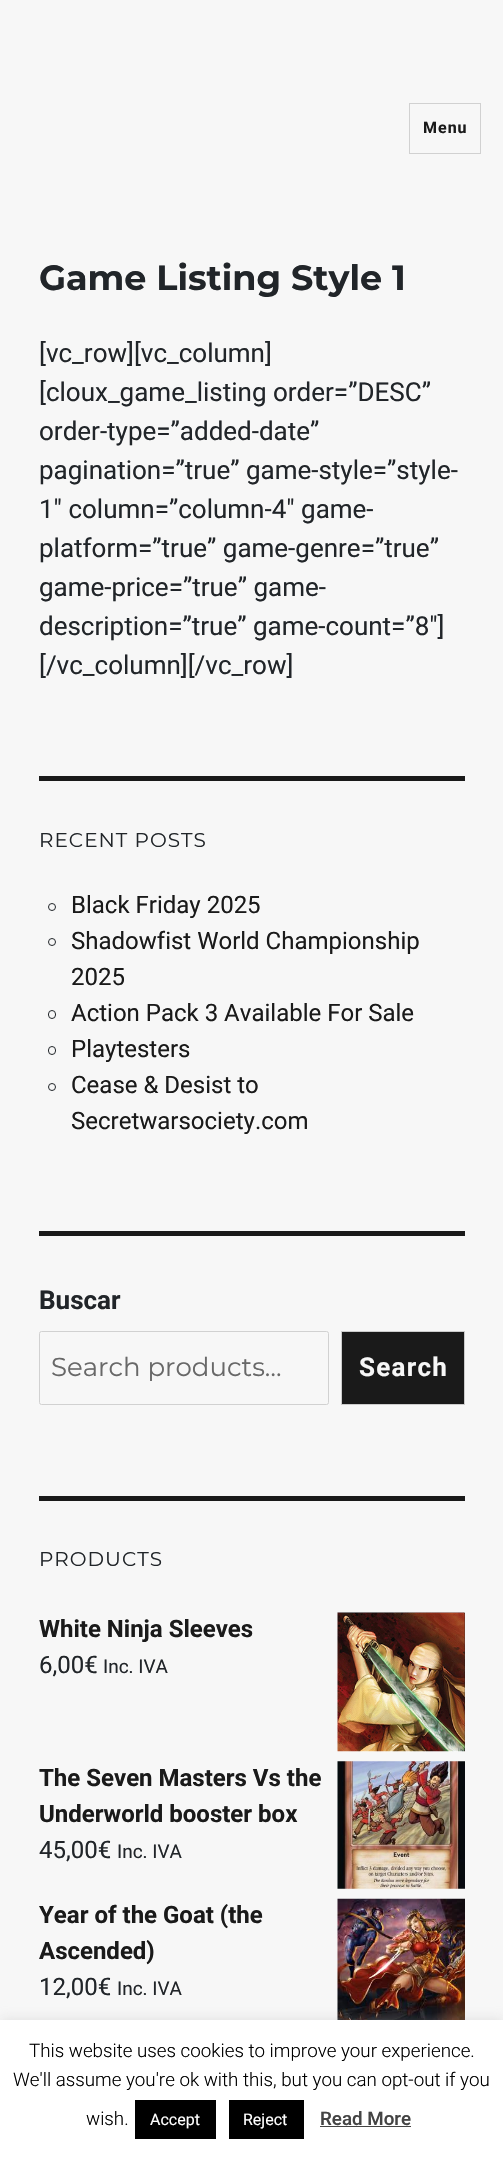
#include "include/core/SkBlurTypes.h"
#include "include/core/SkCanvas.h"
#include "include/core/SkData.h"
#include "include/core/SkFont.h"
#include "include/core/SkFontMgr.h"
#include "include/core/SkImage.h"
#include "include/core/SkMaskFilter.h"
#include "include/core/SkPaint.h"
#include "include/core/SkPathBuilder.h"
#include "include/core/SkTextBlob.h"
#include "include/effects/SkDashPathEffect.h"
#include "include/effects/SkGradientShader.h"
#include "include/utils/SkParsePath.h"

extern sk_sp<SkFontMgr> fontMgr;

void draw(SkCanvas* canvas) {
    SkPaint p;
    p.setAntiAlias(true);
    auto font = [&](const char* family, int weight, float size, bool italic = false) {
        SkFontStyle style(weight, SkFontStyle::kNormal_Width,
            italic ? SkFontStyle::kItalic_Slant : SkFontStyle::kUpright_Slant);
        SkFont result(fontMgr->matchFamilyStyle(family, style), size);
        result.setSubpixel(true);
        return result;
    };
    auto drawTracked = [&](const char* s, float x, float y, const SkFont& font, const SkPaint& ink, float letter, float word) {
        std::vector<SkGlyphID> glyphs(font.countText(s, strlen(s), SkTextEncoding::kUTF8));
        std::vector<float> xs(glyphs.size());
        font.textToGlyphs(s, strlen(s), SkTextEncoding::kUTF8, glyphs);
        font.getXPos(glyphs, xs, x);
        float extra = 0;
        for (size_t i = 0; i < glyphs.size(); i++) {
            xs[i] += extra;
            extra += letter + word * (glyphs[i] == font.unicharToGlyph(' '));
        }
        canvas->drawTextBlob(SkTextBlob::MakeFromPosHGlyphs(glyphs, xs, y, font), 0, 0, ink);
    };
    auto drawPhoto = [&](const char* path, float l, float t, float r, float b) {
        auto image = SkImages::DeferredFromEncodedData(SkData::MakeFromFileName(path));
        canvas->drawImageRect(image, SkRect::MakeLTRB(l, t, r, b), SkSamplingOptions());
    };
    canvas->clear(0xFFF7F7F7);
    p.setStyle(SkPaint::kStroke_Style);
    p.setStrokeWidth(1);
    p.setColor(0xFFD1D1D1);
    canvas->drawRect(SkRect::MakeLTRB(409.5f, 103.5f, 480.5f, 153.5f), p);
    auto font1 = font("Roboto", 700, 16);
    p.setStyle(SkPaint::kFill_Style);
    p.setColor(0xFF1A1A1A);
    drawTracked("Menu", 423, 133, font1, p, 1, 0);
    auto font2 = font("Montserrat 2", 100, 35);
    p.setColor(0xFF212529);
    canvas->drawString("Game Listing Style 1", 39, 290, font2, p);
    auto font3 = font("Roboto", 400, 26);
    {
        const struct { const char* s; float x, y; } items[] = {
            {"[vc_row][vc_column]", 39, 362},
            {"[cloux_game_listing order=”DESC”", 39, 401},
            {"order-type=”added-date”", 39, 440},
            {"pagination=”true” game-style=”style-", 39, 479},
            {"1″ column=”column-4″ game-", 39, 518},
            {"platform=”true” game-genre=”true”", 39, 557},
            {"game-price=”true” game-", 39, 596},
            {"description=”true” game-count=”8″]", 39, 635},
            {"[/vc_column][/vc_row]", 39, 674},
        };
        for (auto [s, x, y] : items) {
            canvas->drawString(s, x, y, font3, p);
        }
    }
    p.setColor(0xFF1A1A1A);
    canvas->drawRect(SkRect::MakeLTRB(39, 776, 465, 781), p);
    auto font4 = font("Montserrat", 100, 20);
    p.setColor(0xFF212529);
    drawTracked("RECENT POSTS", 39, 847, font4, p, 1, 0);
    p.setStyle(SkPaint::kStroke_Style);
    canvas->drawCircle(52, 907, 3.5f, p);
    auto font5 = font("Roboto", 400, 24);
    p.setStyle(SkPaint::kFill_Style);
    p.setColor(0xFF1A1A1A);
    canvas->drawString("Black Friday 2025", 71, 913, font5, p);
    p.setStyle(SkPaint::kStroke_Style);
    p.setColor(0xFF212529);
    canvas->drawCircle(52, 942, 3.5f, p);
    p.setStyle(SkPaint::kFill_Style);
    p.setColor(0xFF1A1A1A);
    canvas->drawString("Shadowfist World Championship", 71, 949, font5, p);
    canvas->drawString("2025", 71, 985, font5, p);
    p.setStyle(SkPaint::kStroke_Style);
    p.setColor(0xFF212529);
    canvas->drawRoundRect(SkRect::MakeLTRB(48.5f, 1010.5f, 55.5f, 1018.5f), 3.5f, 3.5f, p);
    p.setStyle(SkPaint::kFill_Style);
    p.setColor(0xFF1A1A1A);
    canvas->drawString("Action Pack 3 Available For Sale", 71, 1021, font5, p);
    p.setStyle(SkPaint::kStroke_Style);
    p.setColor(0xFF212529);
    canvas->drawRoundRect(SkRect::MakeLTRB(48.5f, 1046.5f, 55.5f, 1054.5f), 3.5f, 3.5f, p);
    p.setStyle(SkPaint::kFill_Style);
    p.setColor(0xFF1A1A1A);
    canvas->drawString("Playtesters", 71, 1057, font5, p);
    p.setStyle(SkPaint::kStroke_Style);
    p.setColor(0xFF212529);
    canvas->drawCircle(52, 1087, 3.5f, p);
    p.setStyle(SkPaint::kFill_Style);
    p.setColor(0xFF1A1A1A);
    canvas->drawString("Cease & Desist to", 71, 1093, font5, p);
    canvas->drawString("Secretwarsociety.com", 71, 1129, font5, p);
    canvas->drawRect(SkRect::MakeLTRB(39, 1231, 465, 1236), p);
    auto font6 = font("Roboto", 700, 26);
    p.setColor(0xFF212529);
    canvas->drawString("Buscar", 39, 1309, font6, p);
    p.setStyle(SkPaint::kStroke_Style);
    p.setColor(0xFFD1D1D1);
    canvas->drawRoundRect(SkRect::MakeLTRB(39.5f, 1331.5f, 328.5f, 1404.5f), 2, 2, p);
    auto font7 = font("Montserrat", 100, 26);
    p.setStyle(SkPaint::kFill_Style);
    p.setColor(0xFF686868);
    canvas->drawString("Search products…", 51, 1376, font7, p);
    p.setColor(0xFF1A1A1A);
    canvas->drawRect(SkRect::MakeLTRB(341.5f, 1331.5f, 464.5f, 1404.5f), p);
    p.setStyle(SkPaint::kStroke_Style);
    p.setColor(0xFFCCCCCC);
    canvas->drawRect(SkRect::MakeLTRB(341.5f, 1331.5f, 464.5f, 1404.5f), p);
    p.setStyle(SkPaint::kFill_Style);
    p.setColor(0xFFF7F7F7);
    drawTracked("Search", 359, 1376, font6, p, 1.25f, 0);
    p.setColor(0xFF1A1A1A);
    canvas->drawRect(SkRect::MakeLTRB(39, 1496, 465, 1501), p);
    p.setColor(0xFF212529);
    drawTracked("PRODUCTS", 39, 1566, font4, p, 1, 0);
    auto font8 = font("Roboto", 700, 24);
    p.setColor(0xFF1A1A1A);
    canvas->drawString("White Ninja Sleeves", 39, 1637, font8, p);
    drawPhoto("media/1.png", 337, 1612, 465, 1752);
    p.setColor(0xFF212529);
    canvas->drawString("6,00€", 39, 1673, font5, p);
    auto font9 = font("Roboto", 400, 19);
    canvas->drawString("Inc. IVA", 103, 1673, font9, p);
    p.setColor(0xFF1A1A1A);
    canvas->drawString("The Seven Masters Vs the", 39, 1786, font8, p);
    drawPhoto("media/2.png", 337, 1761, 465, 1889);
    canvas->drawString("Underworld booster box", 39, 1822, font8, p);
    p.setColor(0xFF212529);
    canvas->drawString("45,00€", 39, 1858, font5, p);
    canvas->drawString("Inc. IVA", 117, 1858, font9, p);
    p.setColor(0xFF1A1A1A);
    canvas->drawString("Year of the Goat (the", 39, 1923, font8, p);
    drawPhoto("media/3.png", 337, 1898, 465, 2020);
    canvas->drawString("Ascended)", 39, 1959, font8, p);
    p.setColor(0xFF212529);
    canvas->drawString("12,00€", 39, 1995, font5, p);
    canvas->drawString("Inc. IVA", 117, 1995, font9, p);
    p.setColor(0x4DACABAB);
    p.setMaskFilter(SkMaskFilter::MakeBlur(kNormal_SkBlurStyle, 6));
    canvas->drawRect(SkRect::MakeLTRB(0, 2019, 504, 2159), p);
    p.setMaskFilter(nullptr);
    p.setColor(0xFFFFFFFF);
    canvas->drawRect(SkRect::MakeLTRB(0, 2020, 503, 2159), p);
    auto font10 = font("Roboto", 300, 18.75f);
    p.setColor(0xFF000000);
    {
        const struct { const char* s; float x, y; } items[] = {
            {"This website uses cookies to improve your experience.", 29, 2057},
            {"We'll assume you're ok with this, but you can opt-out if you", 13, 2086},
            {"wish.", 86, 2125},
        };
        for (auto [s, x, y] : items) {
            canvas->drawString(s, x, y, font10, p);
        }
    }
    canvas->drawRect(SkRect::MakeLTRB(135, 2100, 216, 2139), p);
    auto font11 = font("Roboto", 400, 16);
    p.setColor(0xFFFFFFFF);
    canvas->drawString("Accept", 150, 2125, font11, p);
    p.setColor(0xFF000000);
    canvas->drawRect(SkRect::MakeLTRB(229, 2100, 304, 2139), p);
    p.setColor(0xFFFFFFFF);
    canvas->drawString("Reject", 243, 2125, font11, p);
    auto font12 = font("Roboto", 500, 18.75f);
    p.setColor(0xFF444444);
    canvas->drawString("Read More", 320, 2125, font12, p);
    canvas->drawRect(SkRect::MakeLTRB(320, 2126, 411, 2127), p);
}
